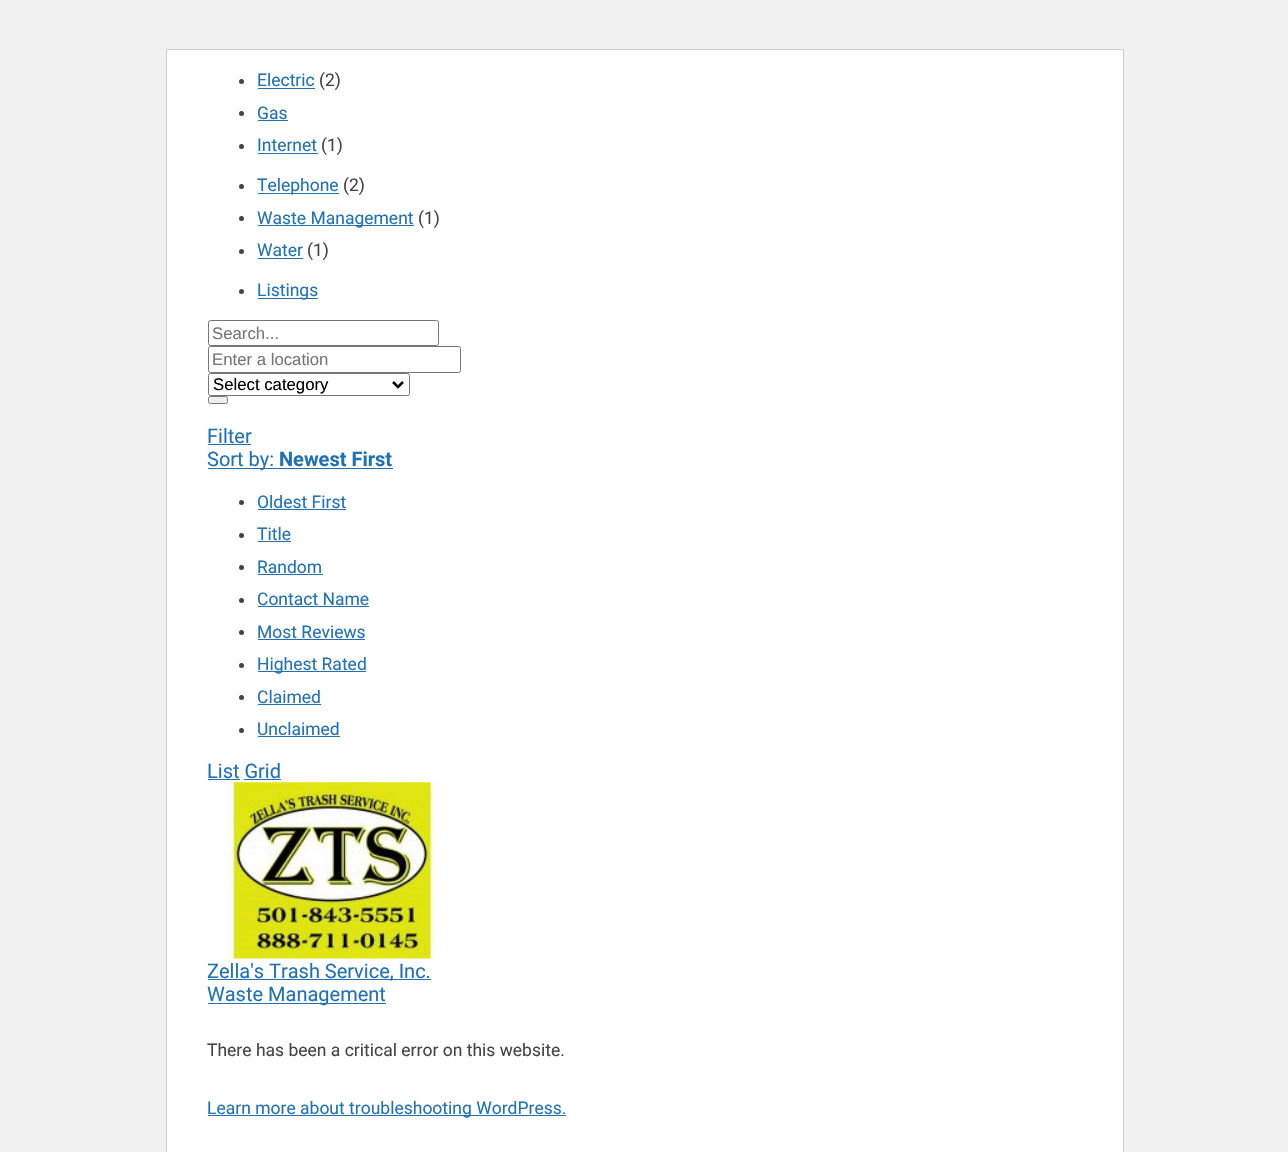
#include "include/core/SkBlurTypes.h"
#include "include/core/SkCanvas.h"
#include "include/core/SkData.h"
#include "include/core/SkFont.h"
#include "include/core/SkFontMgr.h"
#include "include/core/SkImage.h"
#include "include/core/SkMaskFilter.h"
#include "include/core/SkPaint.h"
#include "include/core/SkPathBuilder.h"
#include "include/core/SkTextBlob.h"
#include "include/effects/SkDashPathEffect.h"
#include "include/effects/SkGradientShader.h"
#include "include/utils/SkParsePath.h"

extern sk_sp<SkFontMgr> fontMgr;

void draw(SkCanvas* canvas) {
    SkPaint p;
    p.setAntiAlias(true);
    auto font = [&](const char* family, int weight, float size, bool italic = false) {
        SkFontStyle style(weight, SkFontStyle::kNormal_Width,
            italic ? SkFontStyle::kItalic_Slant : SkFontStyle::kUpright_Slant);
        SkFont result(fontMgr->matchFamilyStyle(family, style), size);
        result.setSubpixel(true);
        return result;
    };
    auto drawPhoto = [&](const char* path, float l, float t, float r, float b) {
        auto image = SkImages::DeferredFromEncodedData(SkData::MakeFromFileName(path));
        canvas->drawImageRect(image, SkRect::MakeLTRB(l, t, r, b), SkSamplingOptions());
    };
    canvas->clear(0xFFF1F1F1);
    p.setColor(0xFFFFFFFF);
    canvas->drawRect(SkRect::MakeLTRB(166.5f, 49.5f, 1123.5f, 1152.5f), p);
    p.setStyle(SkPaint::kStroke_Style);
    p.setStrokeWidth(1);
    p.setColor(0xFFCCD0D4);
    canvas->drawRect(SkRect::MakeLTRB(166.5f, 49.5f, 1123.5f, 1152.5f), p);
    p.setStyle(SkPaint::kFill_Style);
    p.setColor(0xFF444444);
    canvas->drawCircle(241.5f, 81.5f, 2.5f, p);
    auto font1 = font("Roboto", 400, 17.5f);
    p.setColor(0xFF2271B1);
    canvas->drawString("Electric", 257, 86, font1, p);
    canvas->drawRect(SkRect::MakeLTRB(258, 88, 315, 89), p);
    p.setColor(0xFF444444);
    canvas->drawString("(2)", 319, 86, font1, p);
    canvas->drawCircle(241.5f, 113.5f, 2.5f, p);
    p.setColor(0xFF2271B1);
    canvas->drawString("Gas", 257, 119, font1, p);
    canvas->drawRect(SkRect::MakeLTRB(258, 120, 288, 121), p);
    p.setColor(0xFF444444);
    canvas->drawCircle(241.5f, 146.5f, 2.5f, p);
    p.setColor(0xFF2271B1);
    canvas->drawString("Internet", 257, 151, font1, p);
    canvas->drawRect(SkRect::MakeLTRB(258, 153, 318, 154), p);
    p.setColor(0xFF444444);
    canvas->drawString("(1)", 321, 151, font1, p);
    canvas->drawCircle(241.5f, 186.5f, 2.5f, p);
    p.setColor(0xFF2271B1);
    canvas->drawRect(SkRect::MakeLTRB(258, 193, 339, 194), p);
    canvas->drawString("Telephone", 257, 191, font1, p);
    p.setColor(0xFF444444);
    canvas->drawString("(2)", 343, 191, font1, p);
    canvas->drawCircle(241.5f, 218.5f, 2.5f, p);
    p.setColor(0xFF2271B1);
    canvas->drawRect(SkRect::MakeLTRB(258, 225, 414, 226), p);
    canvas->drawString("Waste Management", 257, 224, font1, p);
    p.setColor(0xFF444444);
    canvas->drawString("(1)", 418, 224, font1, p);
    canvas->drawCircle(241.5f, 251.5f, 2.5f, p);
    p.setColor(0xFF2271B1);
    canvas->drawString("Water", 257, 256, font1, p);
    canvas->drawRect(SkRect::MakeLTRB(258, 258, 303, 259), p);
    p.setColor(0xFF444444);
    canvas->drawString("(1)", 307, 256, font1, p);
    canvas->drawCircle(241.5f, 291.5f, 2.5f, p);
    p.setColor(0xFF2271B1);
    canvas->drawRect(SkRect::MakeLTRB(258, 298, 318, 299), p);
    canvas->drawString("Listings", 257, 296, font1, p);
    p.setStyle(SkPaint::kStroke_Style);
    p.setColor(0xFF767676);
    canvas->drawRoundRect(SkRect::MakeLTRB(208.5f, 320.5f, 438.5f, 345.5f), 2, 2, p);
    auto font2 = font("Liberation Sans", 400, 16.75f);
    p.setStyle(SkPaint::kFill_Style);
    p.setColor(0xFF757575);
    canvas->drawString("Search...", 212, 339, font2, p);
    p.setStyle(SkPaint::kStroke_Style);
    p.setColor(0xFF767676);
    canvas->drawRoundRect(SkRect::MakeLTRB(208.5f, 346.5f, 460.5f, 372.5f), 2, 2, p);
    p.setStyle(SkPaint::kFill_Style);
    p.setColor(0xFF757575);
    canvas->drawString("Enter a location", 212, 365, font2, p);
    p.setStyle(SkPaint::kStroke_Style);
    p.setColor(0xFF767676);
    canvas->drawRoundRect(SkRect::MakeLTRB(208.5f, 373.5f, 409.5f, 395.5f), 2, 2, p);
    p.setStrokeWidth(2.5f);
    p.setColor(0xFF000000);
    canvas->drawPath(SkPathBuilder().moveTo(393, 382).lineTo(398, 387).lineTo(403, 382).detach(), p);
    p.setStyle(SkPaint::kFill_Style);
    canvas->drawString("Select category", 213, 390, font2, p);
    p.setColor(0xFFEFEFEF);
    canvas->drawRoundRect(SkRect::MakeLTRB(208.5f, 396.5f, 227.5f, 403.5f), 2, 2, p);
    p.setStyle(SkPaint::kStroke_Style);
    p.setStrokeWidth(1);
    p.setColor(0xFF767676);
    canvas->drawRoundRect(SkRect::MakeLTRB(208.5f, 396.5f, 227.5f, 403.5f), 2, 2, p);
    auto font3 = font("Roboto", 400, 20);
    p.setStyle(SkPaint::kFill_Style);
    p.setColor(0xFF2271B1);
    canvas->drawString("Filter", 207, 443, font3, p);
    canvas->drawRect(SkRect::MakeLTRB(208, 444, 251, 445), p);
    canvas->drawRect(SkRect::MakeLTRB(208, 468, 393, 469), p);
    canvas->drawString("Sort by:", 207, 466, font3, p);
    auto font4 = font("Roboto", 700, 20);
    canvas->drawString("Newest First", 279, 466, font4, p);
    p.setColor(0xFF444444);
    canvas->drawCircle(241.5f, 502.5f, 2.5f, p);
    p.setColor(0xFF2271B1);
    canvas->drawString("Oldest First", 257, 508, font1, p);
    canvas->drawRect(SkRect::MakeLTRB(258, 509, 346, 510), p);
    p.setColor(0xFF444444);
    canvas->drawCircle(241.5f, 535.5f, 2.5f, p);
    p.setColor(0xFF2271B1);
    canvas->drawString("Title", 257, 540, font1, p);
    canvas->drawRect(SkRect::MakeLTRB(258, 541, 291, 542), p);
    p.setColor(0xFF444444);
    canvas->drawCircle(241.5f, 567.5f, 2.5f, p);
    p.setColor(0xFF2271B1);
    canvas->drawString("Random", 257, 573, font1, p);
    canvas->drawRect(SkRect::MakeLTRB(258, 574, 323, 575), p);
    p.setColor(0xFF444444);
    canvas->drawCircle(241.5f, 600.5f, 2.5f, p);
    p.setColor(0xFF2271B1);
    canvas->drawString("Contact Name", 257, 605, font1, p);
    canvas->drawRect(SkRect::MakeLTRB(258, 606, 369, 607), p);
    p.setColor(0xFF444444);
    canvas->drawCircle(241.5f, 632.5f, 2.5f, p);
    p.setColor(0xFF2271B1);
    canvas->drawString("Most Reviews", 257, 638, font1, p);
    canvas->drawRect(SkRect::MakeLTRB(258, 639, 365, 640), p);
    p.setColor(0xFF444444);
    canvas->drawCircle(241.5f, 665.5f, 2.5f, p);
    p.setColor(0xFF2271B1);
    canvas->drawRect(SkRect::MakeLTRB(258, 671, 366, 672), p);
    canvas->drawString("Highest Rated", 257, 670, font1, p);
    p.setColor(0xFF444444);
    canvas->drawCircle(241.5f, 697.5f, 2.5f, p);
    p.setColor(0xFF2271B1);
    canvas->drawString("Claimed", 257, 703, font1, p);
    canvas->drawRect(SkRect::MakeLTRB(258, 704, 321, 705), p);
    p.setColor(0xFF444444);
    canvas->drawCircle(241.5f, 730.5f, 2.5f, p);
    p.setColor(0xFF2271B1);
    canvas->drawString("Unclaimed", 257, 735, font1, p);
    canvas->drawRect(SkRect::MakeLTRB(258, 736, 340, 737), p);
    canvas->drawString("List Grid", 207, 778, font3, p);
    canvas->drawRect(SkRect::MakeLTRB(208, 779, 240, 780), p);
    canvas->drawRect(SkRect::MakeLTRB(244, 779, 281, 780), p);
    drawPhoto("media/1.png", 227, 782, 442, 959);
    canvas->drawRect(SkRect::MakeLTRB(208, 979, 431, 980), p);
    canvas->drawString("Zella's Trash Service, Inc.", 207, 978, font3, p);
    canvas->drawRect(SkRect::MakeLTRB(208, 1003, 386, 1004), p);
    canvas->drawString("Waste Management", 207, 1001, font3, p);
    p.setColor(0xFF444444);
    canvas->drawString("There has been a critical error on this website.", 207, 1056, font1, p);
    p.setColor(0xFF2271B1);
    canvas->drawRect(SkRect::MakeLTRB(208, 1115, 566, 1116), p);
    canvas->drawString("Learn more about troubleshooting WordPress.", 207, 1114, font1, p);
}
